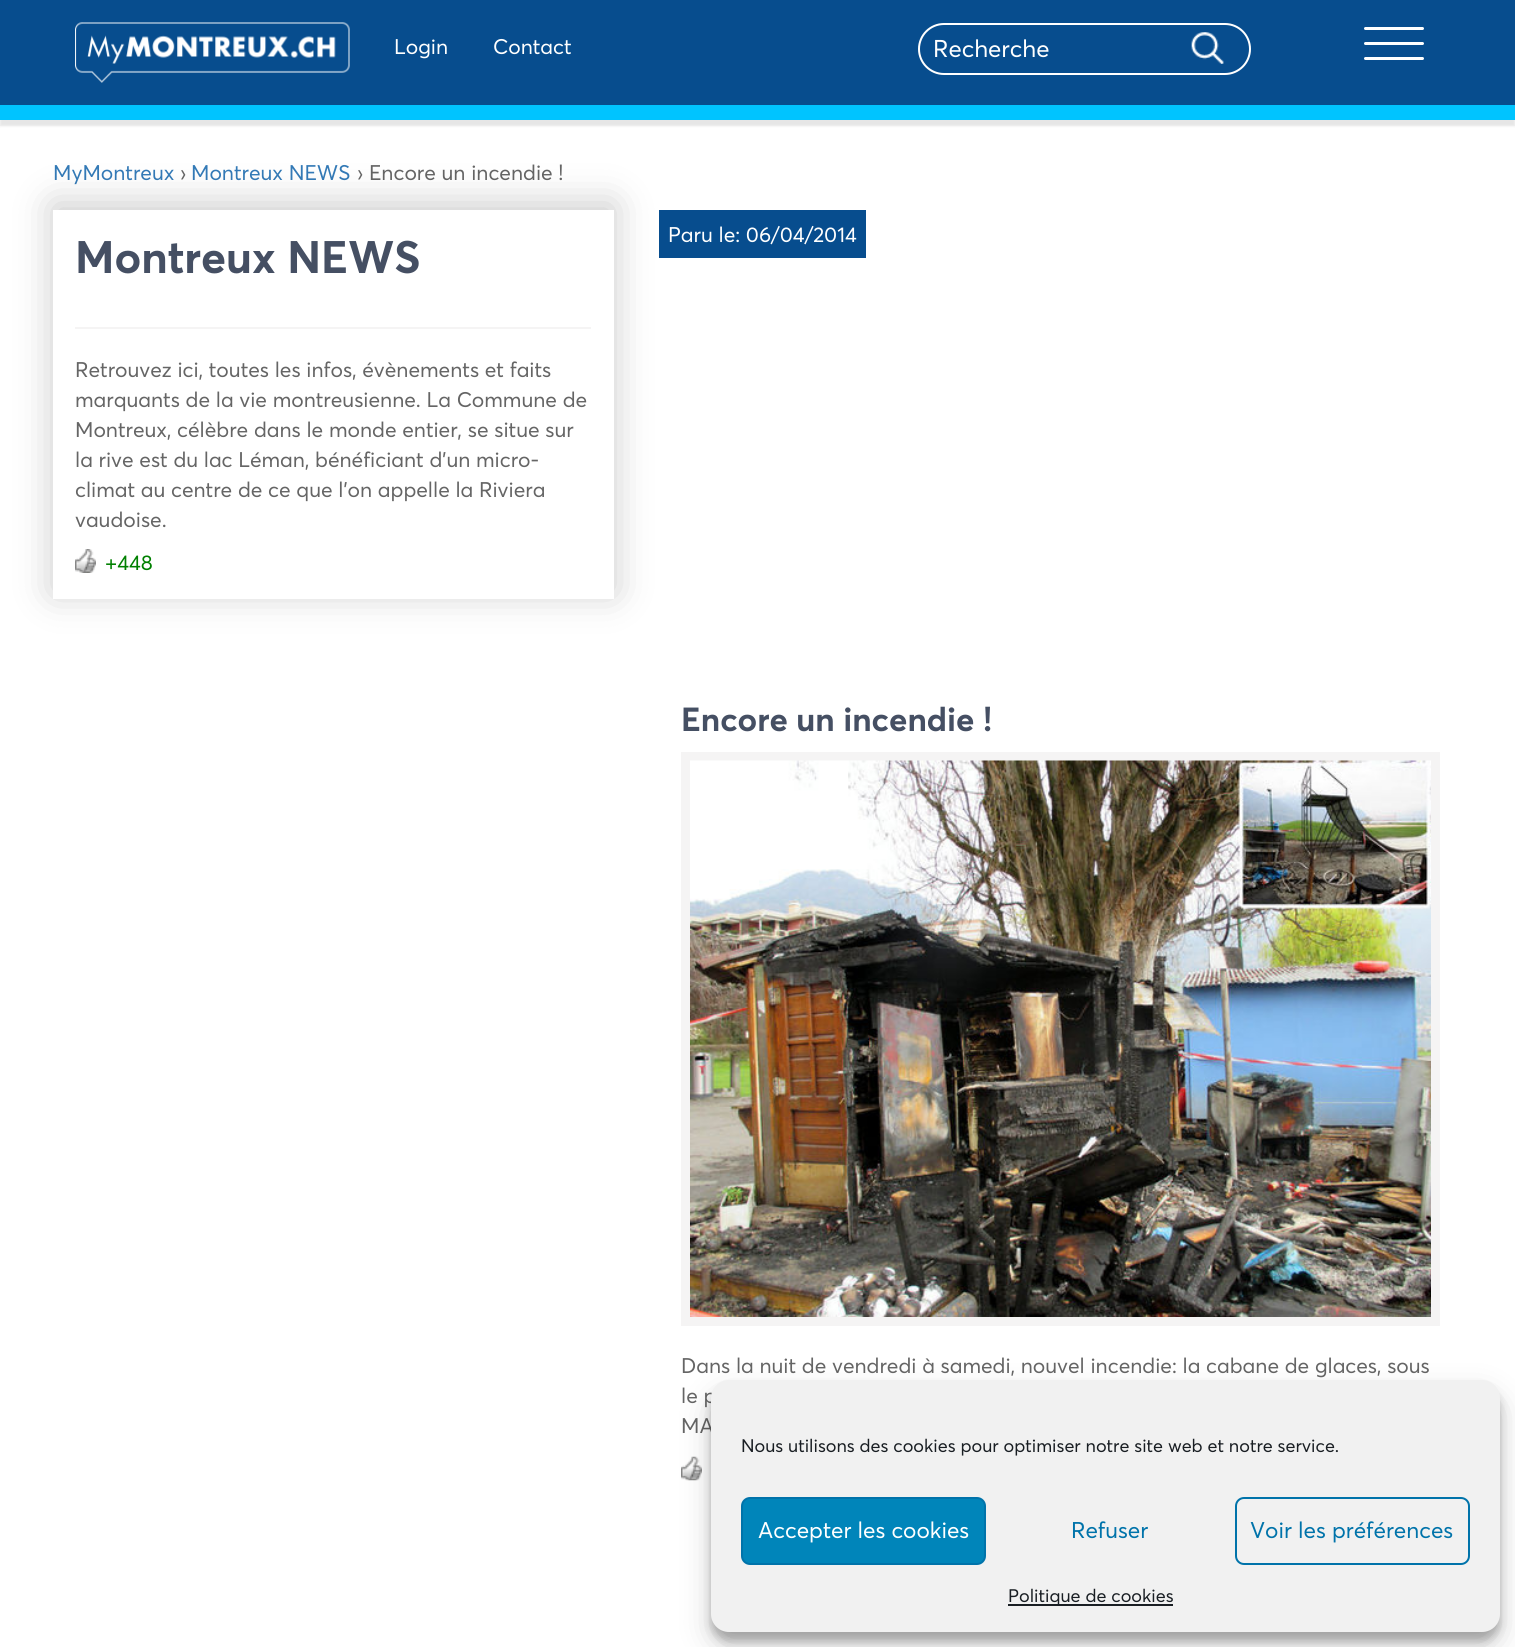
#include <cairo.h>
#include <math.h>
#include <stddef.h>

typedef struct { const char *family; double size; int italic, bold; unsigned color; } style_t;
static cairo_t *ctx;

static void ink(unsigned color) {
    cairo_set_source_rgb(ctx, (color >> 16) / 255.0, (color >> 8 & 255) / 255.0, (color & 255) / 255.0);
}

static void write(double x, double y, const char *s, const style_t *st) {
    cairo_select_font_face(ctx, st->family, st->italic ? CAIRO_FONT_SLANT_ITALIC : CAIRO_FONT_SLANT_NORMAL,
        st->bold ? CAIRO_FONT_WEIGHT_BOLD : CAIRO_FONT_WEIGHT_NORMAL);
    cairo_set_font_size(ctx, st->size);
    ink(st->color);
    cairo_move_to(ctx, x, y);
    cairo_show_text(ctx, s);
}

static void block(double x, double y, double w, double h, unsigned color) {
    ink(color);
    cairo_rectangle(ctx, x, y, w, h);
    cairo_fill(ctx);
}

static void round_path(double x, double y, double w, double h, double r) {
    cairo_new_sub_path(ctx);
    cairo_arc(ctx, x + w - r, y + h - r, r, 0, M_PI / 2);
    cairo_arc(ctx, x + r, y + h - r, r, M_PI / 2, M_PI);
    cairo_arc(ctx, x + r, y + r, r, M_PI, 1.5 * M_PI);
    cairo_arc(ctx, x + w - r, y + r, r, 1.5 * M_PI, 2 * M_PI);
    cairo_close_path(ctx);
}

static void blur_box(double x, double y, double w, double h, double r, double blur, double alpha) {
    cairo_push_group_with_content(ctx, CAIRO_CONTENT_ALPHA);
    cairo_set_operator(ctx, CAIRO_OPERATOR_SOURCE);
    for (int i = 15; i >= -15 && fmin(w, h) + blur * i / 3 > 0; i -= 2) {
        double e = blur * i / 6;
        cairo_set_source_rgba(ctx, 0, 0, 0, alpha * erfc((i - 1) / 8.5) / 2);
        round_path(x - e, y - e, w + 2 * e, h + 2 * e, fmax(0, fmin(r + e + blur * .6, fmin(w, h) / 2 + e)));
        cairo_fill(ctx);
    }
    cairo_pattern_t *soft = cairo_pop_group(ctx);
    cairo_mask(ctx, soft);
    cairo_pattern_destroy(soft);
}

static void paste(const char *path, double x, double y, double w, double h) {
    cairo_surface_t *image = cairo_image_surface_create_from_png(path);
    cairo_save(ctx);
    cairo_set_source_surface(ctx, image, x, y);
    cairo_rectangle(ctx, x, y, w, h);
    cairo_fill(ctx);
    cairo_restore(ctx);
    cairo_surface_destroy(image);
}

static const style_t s1 = {"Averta", 21, 0, 0, 0xffffff};
static const style_t s2 = {"Averta", 24, 0, 0, 0xffffff};
static const style_t s3 = {"Averta", 21, 0, 0, 0x337ab7};
static const style_t s4 = {"Averta", 21, 0, 0, 0x656565};
static const style_t s5 = {"Averta", 45, 0, 1, 0x454f63};
static const style_t s6 = {"Averta", 21, 0, 0, 0x008000};
static const style_t s7 = {"Averta", 33, 0, 1, 0x454f63};
static const style_t s8 = {"Averta", 18, 0, 0, 0x191e23};
static const style_t s9 = {"Averta", 22.5, 0, 0, 0xffffff};
static const style_t s10 = {"Averta", 22.5, 0, 0, 0x0073aa};

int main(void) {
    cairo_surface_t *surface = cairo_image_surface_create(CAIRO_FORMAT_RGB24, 1515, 1647);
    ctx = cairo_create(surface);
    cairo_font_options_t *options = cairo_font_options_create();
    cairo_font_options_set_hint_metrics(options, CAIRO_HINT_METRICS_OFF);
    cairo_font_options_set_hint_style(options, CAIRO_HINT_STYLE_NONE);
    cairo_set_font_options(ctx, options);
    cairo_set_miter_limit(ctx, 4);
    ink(0xffffff);
    cairo_paint(ctx);
    ink(0x000000);
    blur_box(0, 6, 1515, 120, 0, 1, 0.1);
    block(0, 0, 1515, 105, 0x074d8e);
    paste("pic1.png", 75, 22, 275, 61);
    write(394, 54, "Login", &s1);
    write(493, 54, "Contact", &s1);
    round_path(919, 24, 331, 50, 25);
    cairo_stroke(ctx);
    write(933, 57, "Recherche", &s2);
    paste("pic2.png", 1191, 32, 33, 32);
    round_path(1364, 27, 60, 3, 1.5);
    cairo_fill(ctx);
    round_path(1364, 42, 60, 3, 1.5);
    cairo_fill(ctx);
    round_path(1364, 57, 60, 3, 1.5);
    cairo_fill(ctx);
    block(0, 105, 1515, 15, 0x00c4ff);
    write(53, 180, "MyMontreux", &s3);
    write(180, 180, "›", &s4);
    write(191, 180, "Montreux NEWS", &s3);
    write(357, 180, "› Encore un incendie !", &s4);
    ink(0x000000);
    blur_box(53, 204, 561, 389, 0, 19, 0.21);
    block(53, 210, 561, 389, 0xffffff);
    write(75, 273, "Montreux NEWS", &s5);
    block(75, 327, 516, 2, 0xf5f4f4);
    write(75, 377, "Retrouvez ici, toutes les infos, évènements et faits", &s4);
    write(75, 407, "marquants de la vie montreusienne. La Commune de", &s4);
    write(75, 437, "Montreux, célèbre dans le monde entier, se situe sur", &s4);
    write(75, 467, "la rive est du lac Léman, bénéficiant d’un micro-", &s4);
    write(75, 497, "climat au centre de ce que l’on appelle la Riviera", &s4);
    write(75, 527, "vaudoise.", &s4);
    paste("pic3.png", 75, 549, 21, 24);
    write(105, 570, "+448", &s6);
    block(659, 210, 207, 48, 0x074d8e);
    write(668, 242, "Paru le: 06/04/2014", &s1);
    write(681, 731, "Encore un incendie !", &s7);
    block(681, 752, 759, 574, 0xf5f4f4);
    paste("pic4.png", 690, 760, 741, 557);
    write(681, 1373, "Dans la nuit de vendredi à samedi, nouvel incendie: la cabane de glaces, sous", &s4);
    write(681, 1403, "le p", &s4);
    write(681, 1433, "MA", &s4);
    paste("pic5.png", 681, 1456, 21, 25);
    ink(0x000000);
    blur_box(711, 1389, 789, 252, 18, 4.5, 0.23);
    blur_box(711, 1395, 789, 252, 18, 15, 0.19);
    ink(0xf1f1f1);
    round_path(711, 1380, 789, 252, 18);
    cairo_fill(ctx);
    write(741, 1452, "Nous utilisons des cookies pour optimiser notre site web et notre service.", &s8);
    ink(0x0085ba);
    round_path(742, 1498, 243, 66, 8);
    cairo_fill_preserve(ctx);
    ink(0x0073aa);
    cairo_stroke(ctx);
    write(758, 1538, "Accepter les cookies", &s9);
    write(1071, 1538, "Refuser", &s10);
    round_path(1236, 1498, 233, 66, 8);
    cairo_stroke(ctx);
    write(1250, 1538, "Voir les préférences", &s10);
    block(1008, 1604, 165, 2, 0x191e23);
    write(1008, 1602, "Politique de cookies", &s8);
    cairo_surface_write_to_png(surface, "screenshot.png");
    cairo_font_options_destroy(options);
    cairo_destroy(ctx);
    cairo_surface_destroy(surface);
    return 0;
}
